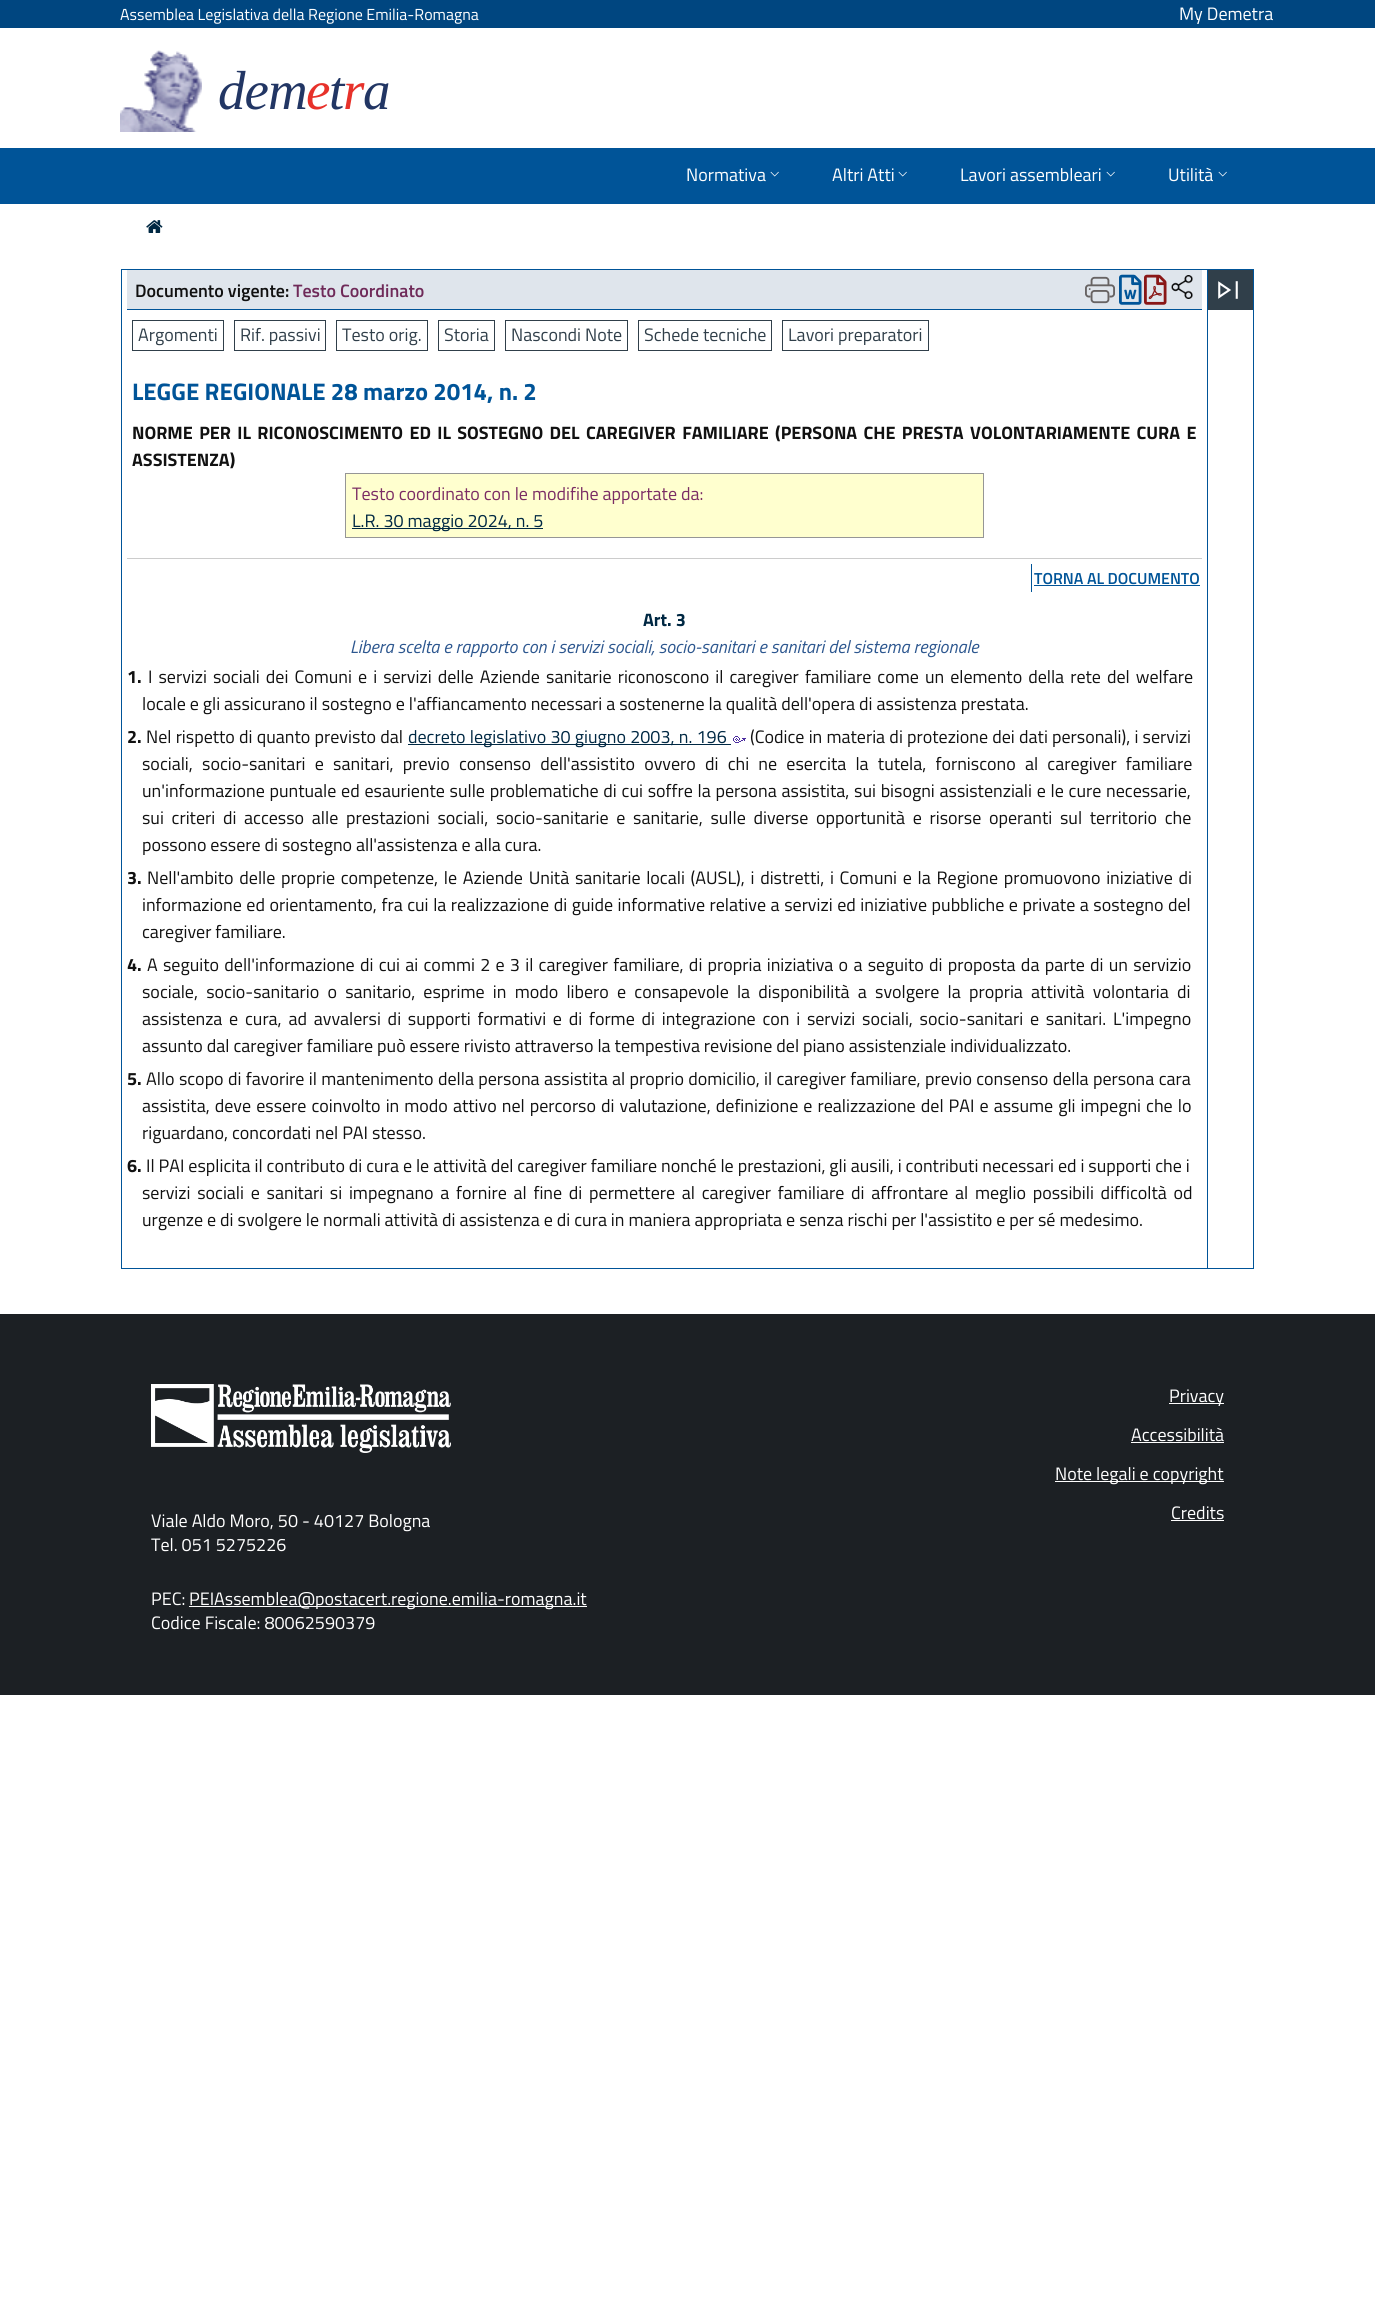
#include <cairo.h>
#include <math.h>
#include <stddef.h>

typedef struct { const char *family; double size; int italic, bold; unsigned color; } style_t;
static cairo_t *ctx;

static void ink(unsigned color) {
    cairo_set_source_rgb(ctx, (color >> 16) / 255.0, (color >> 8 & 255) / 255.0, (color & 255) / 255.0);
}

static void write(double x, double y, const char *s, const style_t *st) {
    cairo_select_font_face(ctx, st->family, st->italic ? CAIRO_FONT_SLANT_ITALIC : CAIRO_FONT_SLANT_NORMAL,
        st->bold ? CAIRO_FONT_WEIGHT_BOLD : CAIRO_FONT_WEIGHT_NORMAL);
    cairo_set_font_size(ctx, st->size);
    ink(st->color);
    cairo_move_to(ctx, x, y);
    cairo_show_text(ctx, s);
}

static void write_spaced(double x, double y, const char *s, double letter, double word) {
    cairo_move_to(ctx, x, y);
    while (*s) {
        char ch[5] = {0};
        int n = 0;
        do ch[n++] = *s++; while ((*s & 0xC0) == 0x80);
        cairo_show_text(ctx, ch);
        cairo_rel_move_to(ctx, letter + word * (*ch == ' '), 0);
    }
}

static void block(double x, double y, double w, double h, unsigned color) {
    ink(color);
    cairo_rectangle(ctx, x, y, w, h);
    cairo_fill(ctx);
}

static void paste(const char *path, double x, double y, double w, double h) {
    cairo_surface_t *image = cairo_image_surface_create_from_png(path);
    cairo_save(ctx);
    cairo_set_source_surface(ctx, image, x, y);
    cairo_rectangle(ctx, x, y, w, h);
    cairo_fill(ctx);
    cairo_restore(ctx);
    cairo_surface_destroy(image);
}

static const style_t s1 = {"Titillium Web", 16, 0, 0, 0xffffff};
static const style_t s2 = {"Titillium Web", 18, 0, 0, 0xffffff};
static const style_t s3 = {"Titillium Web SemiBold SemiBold", 18, 0, 0, 0x111111};
static const style_t s4 = {"Titillium Web SemiBold SemiBold", 18, 0, 0, 0x6f2a59};
static const style_t s5 = {"Titillium Web", 18, 0, 0, 0x303f4a};
static const style_t s6 = {"Titillium Web", 24, 0, 1, 0x005498};
static const style_t s7 = {"Titillium Web", 18, 0, 1, 0x111111};
static const style_t s8 = {"Titillium Web", 18, 0, 0, 0x7b2d64};
static const style_t s9 = {"Titillium Web", 18, 0, 0, 0x002843};
static const style_t s10 = {"Titillium Web SemiBold SemiBold", 16, 0, 0, 0x005498};
static const style_t s11 = {"Titillium Web", 18, 0, 1, 0x002843};
static const style_t s12 = {"Titillium Web", 18, 1, 0, 0x2d578f};
static const style_t s13 = {"Titillium Web", 18, 0, 0, 0x111111};

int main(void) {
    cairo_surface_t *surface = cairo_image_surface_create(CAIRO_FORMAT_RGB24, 1375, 2316);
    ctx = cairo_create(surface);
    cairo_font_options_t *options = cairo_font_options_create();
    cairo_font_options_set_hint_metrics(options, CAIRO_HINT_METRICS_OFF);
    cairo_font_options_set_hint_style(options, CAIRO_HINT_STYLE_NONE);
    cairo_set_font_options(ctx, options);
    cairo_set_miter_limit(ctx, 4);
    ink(0xffffff);
    cairo_paint(ctx);
    block(0, 0, 1375, 28, 0x004680);
    write(120, 20, "Assemblea Legislativa della Regione Emilia-Romagna", &s1);
    write(1179, 20, "My Demetra", &s2);
    paste("pic1.png", 120, 50, 82, 82);
    cairo_select_font_face(ctx, "Liberation Serif", CAIRO_FONT_SLANT_ITALIC, CAIRO_FONT_WEIGHT_NORMAL);
    cairo_set_font_size(ctx, 55);
    ink(0x223664);
    write_spaced(218, 109, "dem", -1, 0);
    ink(0xe7312a);
    write_spaced(306, 109, "e", -1, 0);
    ink(0x223664);
    write_spaced(329, 109, "t", -1, 0);
    ink(0xe7312a);
    write_spaced(343, 109, "r", -1, 0);
    ink(0x223664);
    write_spaced(363, 109, "a", -1, 0);
    block(0, 148, 1375, 56, 0x005498);
    write(686, 181, "Normativa", &s2);
    paste("pic2.png", 770, 171, 9, 6);
    write(832, 181, "Altri Atti", &s2);
    paste("pic2.png", 898, 171, 9, 6);
    write(960, 181, "Lavori assembleari", &s2);
    paste("pic2.png", 1106, 171, 9, 6);
    write(1168, 181, "Utilità", &s2);
    paste("pic2.png", 1218, 171, 9, 6);
    paste("pic3.png", 146, 220, 17, 13);
    cairo_rectangle(ctx, 121.5, 269.5, 1132, 999);
    ink(0x005498);
    cairo_set_line_width(ctx, 1);
    cairo_stroke(ctx);
    block(1207, 270, 1, 998, 0x005498);
    block(127, 270, 1075, 39, 0xdfe5ec);
    block(127, 309, 1075, 1, 0x005498);
    write(135, 297, "Documento vigente:", &s3);
    write(293, 297, "Testo Coordinato", &s4);
    paste("pic4.png", 1085, 276, 30, 28);
    paste("pic5.png", 1119, 274, 23, 31);
    paste("pic6.png", 1144, 274, 23, 31);
    paste("pic7.png", 1171, 275, 22, 24);
    cairo_rectangle(ctx, 132.5, 320.5, 91, 30);
    ink(0x303f4a);
    cairo_stroke(ctx);
    write(138, 341, "Argomenti", &s5);
    cairo_rectangle(ctx, 234.5, 320.5, 91, 30);
    cairo_stroke(ctx);
    write(240, 341, "Rif. passivi", &s5);
    cairo_rectangle(ctx, 336.5, 320.5, 91, 30);
    cairo_stroke(ctx);
    write(342, 341, "Testo orig.", &s5);
    cairo_rectangle(ctx, 438.5, 320.5, 56, 30);
    cairo_stroke(ctx);
    write(444, 341, "Storia", &s5);
    cairo_rectangle(ctx, 505.5, 320.5, 122, 30);
    cairo_stroke(ctx);
    write(511, 341, "Nascondi Note", &s5);
    cairo_rectangle(ctx, 638.5, 320.5, 133, 30);
    cairo_stroke(ctx);
    write(644, 341, "Schede tecniche", &s5);
    cairo_rectangle(ctx, 782.5, 320.5, 146, 30);
    cairo_stroke(ctx);
    write(788, 341, "Lavori preparatori", &s5);
    write(132, 400, "LEGGE REGIONALE 28 marzo 2014, n. 2", &s6);
    cairo_set_font_size(ctx, 18);
    ink(0x111111);
    write_spaced(132, 439, "NORME PER IL RICONOSCIMENTO ED IL SOSTEGNO DEL CAREGIVER FAMILIARE (PERSONA CHE PRESTA VOLONTARIAMENTE CURA E", 0, 2.4);
    write(132, 466, "ASSISTENZA)", &s7);
    ink(0xffffcf);
    cairo_rectangle(ctx, 345.5, 473.5, 638, 64);
    cairo_fill_preserve(ctx);
    ink(0x969696);
    cairo_stroke(ctx);
    write(352, 500, "Testo coordinato con le modifihe apportate da:", &s8);
    block(352, 528, 191, 1, 0x002843);
    write(352, 527, "L.R. 30 maggio 2024, n. 5", &s9);
    block(127, 558, 1075, 1, 0xcccccc);
    block(1031, 564, 1, 28, 0x005498);
    write(1034, 584, "TORNA AL DOCUMENTO", &s10);
    block(1034, 585, 166, 1, 0x005498);
    write(643, 626, "Art. 3", &s11);
    write(350, 653, "Libera scelta e rapporto con i servizi sociali, socio-sanitari e sanitari del sistema regionale", &s12);
    write(127, 683, "1.", &s7);
    cairo_select_font_face(ctx, "Titillium Web", CAIRO_FONT_SLANT_NORMAL, CAIRO_FONT_WEIGHT_NORMAL);
    write_spaced(148, 683, "I servizi sociali dei Comuni e i servizi delle Aziende sanitarie riconoscono il caregiver familiare come un elemento della rete del welfare", 0, 2.1);
    write(142, 710, "locale e gli assicurano il sostegno e l'affiancamento necessari a sostenerne la qualità dell'opera di assistenza prestata.", &s13);
    write(127, 743, "2.", &s7);
    cairo_select_font_face(ctx, "Titillium Web", CAIRO_FONT_SLANT_NORMAL, CAIRO_FONT_WEIGHT_NORMAL);
    write_spaced(146, 743, "Nel rispetto di quanto previsto dal", 0, 0.25);
    block(408, 744, 323, 1, 0x002843);
    write_spaced(408, 743, "decreto legislativo 30 giugno 2003, n. 196", 0, 0.25);
    paste("pic8.png", 733, 736, 13, 7);
    ink(0x111111);
    write_spaced(750, 743, "(Codice in materia di protezione dei dati personali), i servizi", 0, 0.25);
    write_spaced(142, 770, "sociali, socio-sanitari e sanitari, previo consenso dell'assistito ovvero di chi ne esercita la tutela, forniscono al caregiver familiare", 0, 5.25);
    write_spaced(142, 797, "un'informazione puntuale ed esauriente sulle problematiche di cui soffre la persona assistita, sui bisogni assistenziali e le cure necessarie,", 0, 0.8);
    write_spaced(142, 824, "sui criteri di accesso alle prestazioni sociali, socio-sanitarie e sanitarie, sulle diverse opportunità e risorse operanti sul territorio che", 0, 3.75);
    write(142, 851, "possono essere di sostegno all'assistenza e alla cura.", &s13);
    write(127, 884, "3.", &s7);
    cairo_select_font_face(ctx, "Titillium Web", CAIRO_FONT_SLANT_NORMAL, CAIRO_FONT_WEIGHT_NORMAL);
    write_spaced(147, 884, "Nell'ambito delle proprie competenze, le Aziende Unità sanitarie locali (AUSL), i distretti, i Comuni e la Regione promuovono iniziative di", 0, 1.75);
    write_spaced(142, 911, "informazione ed orientamento, fra cui la realizzazione di guide informative relative a servizi ed iniziative pubbliche e private a sostegno del", 0, 0.6);
    write(142, 938, "caregiver familiare.", &s13);
    write(127, 971, "4.", &s7);
    cairo_select_font_face(ctx, "Titillium Web", CAIRO_FONT_SLANT_NORMAL, CAIRO_FONT_WEIGHT_NORMAL);
    write_spaced(147, 971, "A seguito dell'informazione di cui ai commi 2 e 3 il caregiver familiare, di propria iniziativa o a seguito di proposta da parte di un servizio", 0, 1.3);
    write_spaced(142, 998, "sociale, socio-sanitario o sanitario, esprime in modo libero e consapevole la disponibilità a svolgere la propria attività volontaria di", 0, 4.25);
    write_spaced(142, 1025, "assistenza e cura, ad avvalersi di supporti formativi e di forme di integrazione con i servizi sociali, socio-sanitari e sanitari. L'impegno", 0, 2.8);
    write(142, 1052, "assunto dal caregiver familiare può essere rivisto attraverso la tempestiva revisione del piano assistenziale individualizzato.", &s13);
    write(127, 1085, "5.", &s7);
    cairo_select_font_face(ctx, "Titillium Web", CAIRO_FONT_SLANT_NORMAL, CAIRO_FONT_WEIGHT_NORMAL);
    write_spaced(146, 1085, "Allo scopo di favorire il mantenimento della persona assistita al proprio domicilio, il caregiver familiare, previo consenso della persona cara", 0, 0.4);
    write_spaced(142, 1112, "assistita, deve essere coinvolto in modo attivo nel percorso di valutazione, definizione e realizzazione del PAI e assume gli impegni che lo", 0, 1.1);
    write(142, 1139, "riguardano, concordati nel PAI stesso.", &s13);
    write(127, 1172, "6.", &s7);
    write(146, 1172, "Il PAI esplicita il contributo di cura e le attività del caregiver familiare nonché le prestazioni, gli ausili, i contributi necessari ed i supporti che i", &s13);
    write_spaced(142, 1199, "servizi sociali e sanitari si impegnano a fornire al fine di permettere al caregiver familiare di affrontare al meglio possibili difficoltà od", 0, 2.8);
    write(142, 1226, "urgenze e di svolgere le normali attività di assistenza e di cura in maniera appropriata e senza rischi per l'assistito e per sé medesimo.", &s13);
    block(1208, 270, 45, 40, 0x303f4a);
    paste("pic9.png", 1218, 281, 20, 18);
    block(0, 1314, 1375, 381, 0x1c2024);
    block(1169, 1403, 55, 1, 0xffffff);
    write(1169, 1402, "Privacy", &s2);
    write(1131, 1441, "Accessibilità", &s2);
    block(1131, 1442, 93, 1, 0xffffff);
    block(1055, 1481, 169, 1, 0xffffff);
    write(1055, 1480, "Note legali e copyright", &s2);
    write(1171, 1519, "Credits", &s2);
    block(1171, 1520, 53, 1, 0xffffff);
    paste("pic10.png", 151, 1384, 300, 69);
    write(151, 1527, "Viale Aldo Moro, 50 - 40127 Bologna", &s2);
    write(151, 1551, "Tel. 051 5275226", &s2);
    write(151, 1605, "PEC:", &s2);
    block(189, 1606, 398, 1, 0xffffff);
    write(189, 1605, "PEIAssemblea@postacert.regione.emilia-romagna.it", &s2);
    write(151, 1629, "Codice Fiscale: 80062590379", &s2);
    cairo_surface_write_to_png(surface, "screenshot.png");
    cairo_font_options_destroy(options);
    cairo_destroy(ctx);
    cairo_surface_destroy(surface);
    return 0;
}
